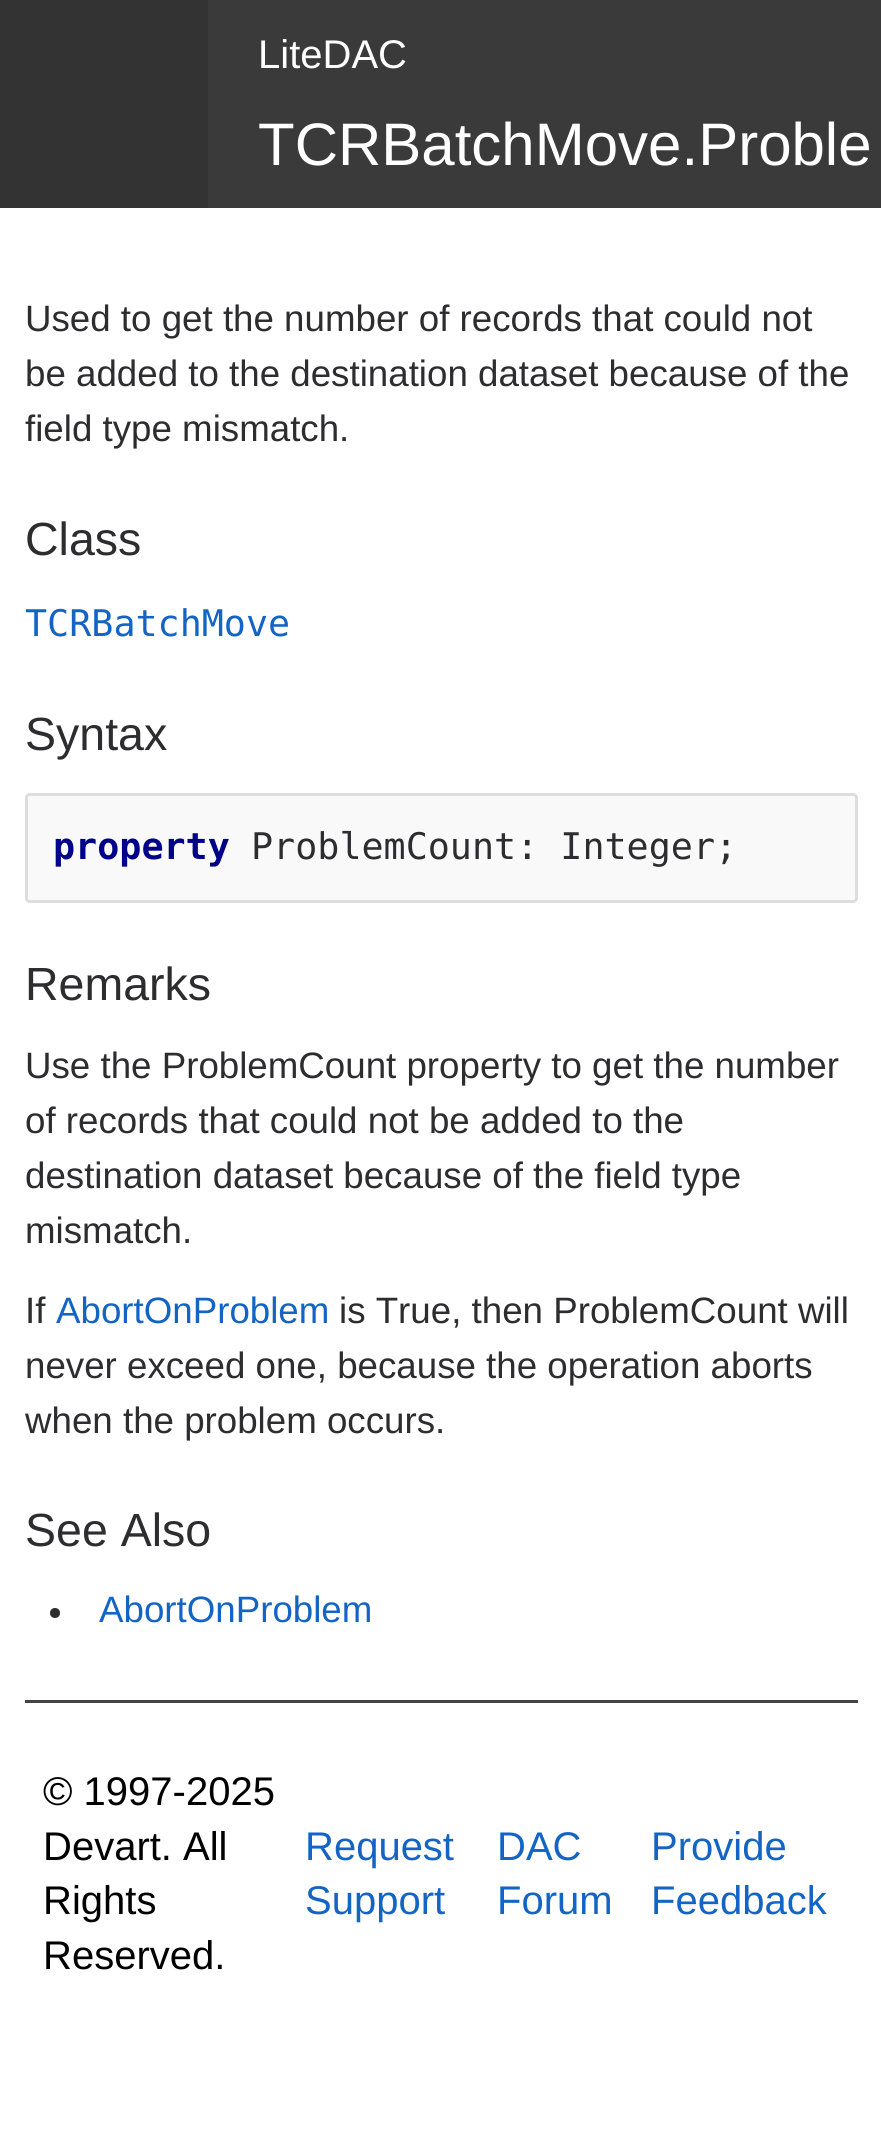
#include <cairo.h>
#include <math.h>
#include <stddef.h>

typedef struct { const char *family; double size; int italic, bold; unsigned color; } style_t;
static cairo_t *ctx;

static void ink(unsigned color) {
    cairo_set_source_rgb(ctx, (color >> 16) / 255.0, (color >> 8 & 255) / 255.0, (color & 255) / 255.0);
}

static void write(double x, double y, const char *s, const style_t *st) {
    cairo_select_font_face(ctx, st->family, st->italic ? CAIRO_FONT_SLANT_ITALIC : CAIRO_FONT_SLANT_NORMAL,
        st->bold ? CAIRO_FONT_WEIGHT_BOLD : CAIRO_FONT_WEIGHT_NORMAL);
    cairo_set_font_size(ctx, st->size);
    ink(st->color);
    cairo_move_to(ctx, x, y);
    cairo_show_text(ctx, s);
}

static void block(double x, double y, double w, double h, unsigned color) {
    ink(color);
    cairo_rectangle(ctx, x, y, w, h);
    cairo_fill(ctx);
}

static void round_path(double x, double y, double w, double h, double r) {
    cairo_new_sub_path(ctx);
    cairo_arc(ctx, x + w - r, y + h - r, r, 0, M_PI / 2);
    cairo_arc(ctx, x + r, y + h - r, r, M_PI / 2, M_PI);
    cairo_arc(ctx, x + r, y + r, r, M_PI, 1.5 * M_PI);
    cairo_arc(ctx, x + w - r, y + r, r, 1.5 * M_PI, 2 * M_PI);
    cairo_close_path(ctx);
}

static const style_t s1 = {"Liberation Sans", 40, 0, 0, 0xffffff};
static const style_t s2 = {"Liberation Sans", 60, 0, 0, 0xffffff};
static const style_t s3 = {"Liberation Sans", 36.7, 0, 0, 0x2d2d30};
static const style_t s4 = {"Liberation Sans", 46.5, 0, 0, 0x2d2d30};
static const style_t s5 = {"DejaVu Sans Mono", 36.7, 0, 0, 0x1364c4};
static const style_t s6 = {"DejaVu Sans Mono", 36.7, 0, 1, 0x000088};
static const style_t s7 = {"DejaVu Sans Mono", 36.7, 0, 0, 0x2d2d30};
static const style_t s8 = {"Liberation Sans", 36.7, 0, 0, 0x1364c4};
static const style_t s9 = {"Liberation Sans", 40, 0, 0, 0x000000};
static const style_t s10 = {"Liberation Sans", 40, 0, 0, 0x1364c4};

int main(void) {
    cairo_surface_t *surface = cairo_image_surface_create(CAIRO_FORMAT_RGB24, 881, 2140);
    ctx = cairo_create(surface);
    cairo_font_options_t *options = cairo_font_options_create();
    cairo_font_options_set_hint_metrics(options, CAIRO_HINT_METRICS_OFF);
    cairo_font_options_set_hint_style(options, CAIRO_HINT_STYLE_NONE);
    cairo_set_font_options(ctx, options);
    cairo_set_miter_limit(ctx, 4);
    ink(0xffffff);
    cairo_paint(ctx);
    block(0, 0, 208, 208, 0x333333);
    block(208, 0, 673, 208, 0x3a3a3a);
    write(258, 68, "LiteDAC", &s1);
    write(258, 165, "TCRBatchMove.Proble", &s2);
    write(25, 331, "Used to get the number of records that could not", &s3);
    write(25, 386, "be added to the destination dataset because of the", &s3);
    write(25, 441, "field type mismatch.", &s3);
    write(25, 555, "Class", &s4);
    write(25, 636, "TCRBatchMove", &s5);
    write(25, 750, "Syntax", &s4);
    ink(0xf9f9f9);
    round_path(26.5, 794.5, 830, 107, 3.5);
    cairo_fill_preserve(ctx);
    ink(0xdddddd);
    cairo_set_line_width(ctx, 3);
    cairo_stroke(ctx);
    write(53, 859, "property", &s6);
    write(251, 859, "ProblemCount: Integer;", &s7);
    write(25, 1000, "Remarks", &s4);
    write(25, 1078, "Use the ProblemCount property to get the number", &s3);
    write(25, 1133, "of records that could not be added to the", &s3);
    write(25, 1188, "destination dataset because of the field type", &s3);
    write(25, 1243, "mismatch.", &s3);
    write(25, 1323, "If", &s3);
    write(56, 1323, "AbortOnProblem", &s8);
    write(339, 1323, "is True, then ProblemCount will", &s3);
    write(25, 1378, "never exceed one, because the operation aborts", &s3);
    write(25, 1433, "when the problem occurs.", &s3);
    write(25, 1546, "See Also", &s4);
    cairo_new_path(ctx);
    cairo_arc(ctx, 55, 1613, 5, 0, 2 * M_PI);
    cairo_fill(ctx);
    write(99, 1622, "AbortOnProblem", &s8);
    block(25, 1700, 833, 3, 0x444444);
    write(43, 1805, "© 1997-2025", &s9);
    write(43, 1860, "Devart. All", &s9);
    write(43, 1914, "Rights", &s9);
    write(43, 1969, "Reserved.", &s9);
    write(305, 1860, "Request", &s10);
    write(305, 1914, "Support", &s10);
    write(497, 1860, "DAC", &s10);
    write(497, 1914, "Forum", &s10);
    write(651, 1860, "Provide", &s10);
    write(651, 1914, "Feedback", &s10);
    cairo_surface_write_to_png(surface, "screenshot.png");
    cairo_font_options_destroy(options);
    cairo_destroy(ctx);
    cairo_surface_destroy(surface);
    return 0;
}
